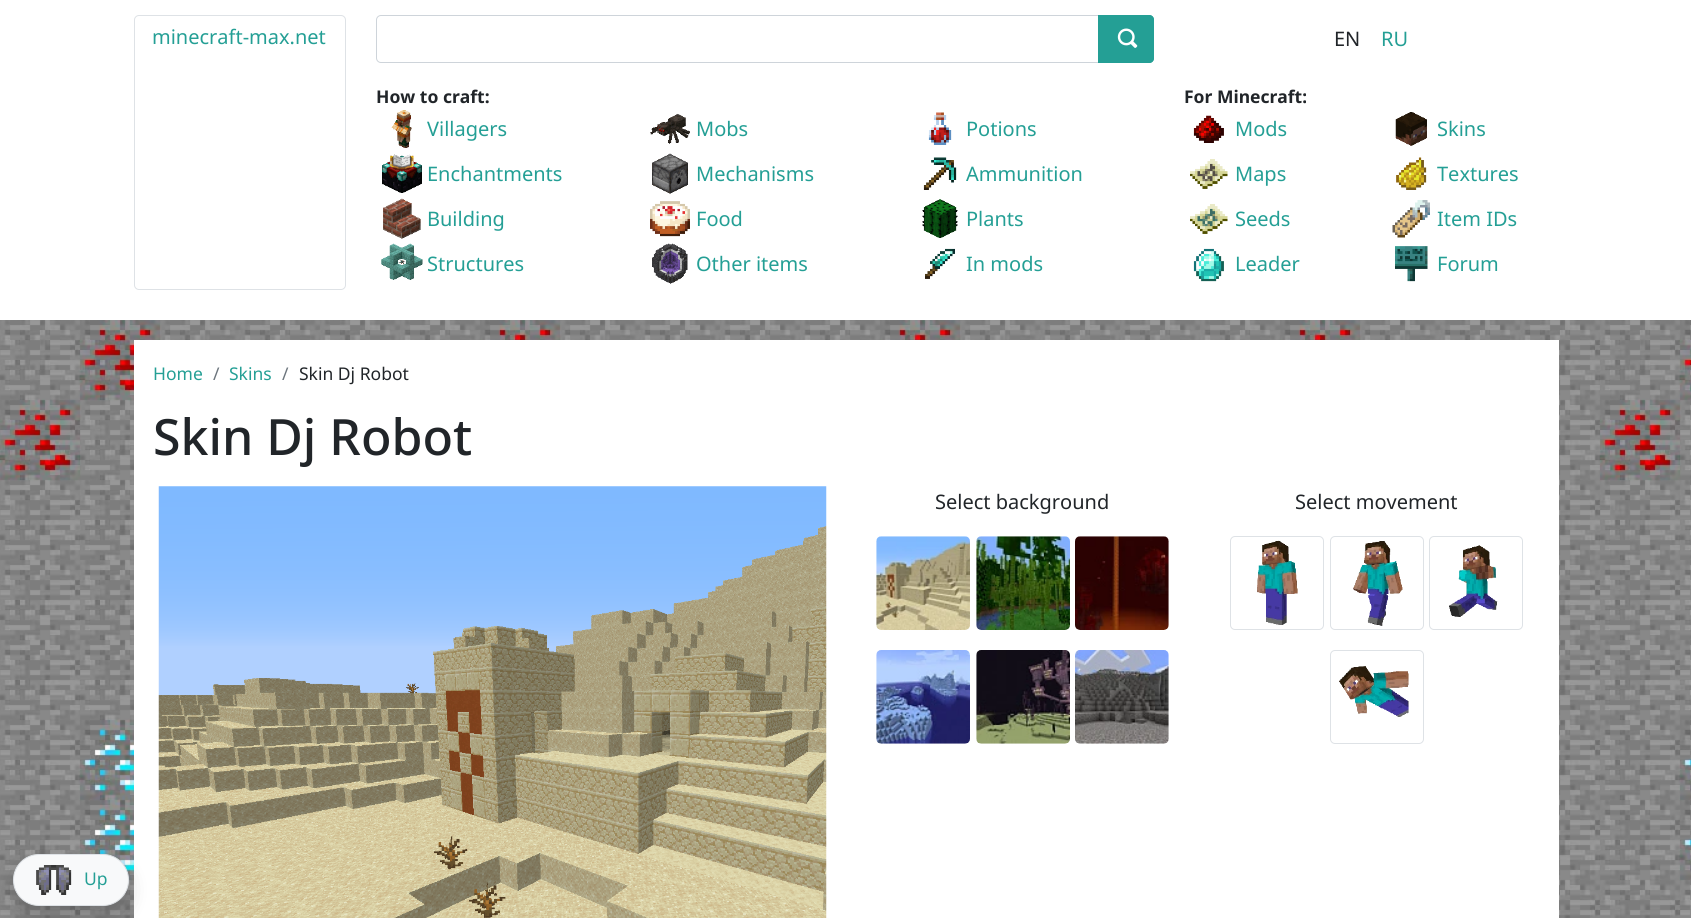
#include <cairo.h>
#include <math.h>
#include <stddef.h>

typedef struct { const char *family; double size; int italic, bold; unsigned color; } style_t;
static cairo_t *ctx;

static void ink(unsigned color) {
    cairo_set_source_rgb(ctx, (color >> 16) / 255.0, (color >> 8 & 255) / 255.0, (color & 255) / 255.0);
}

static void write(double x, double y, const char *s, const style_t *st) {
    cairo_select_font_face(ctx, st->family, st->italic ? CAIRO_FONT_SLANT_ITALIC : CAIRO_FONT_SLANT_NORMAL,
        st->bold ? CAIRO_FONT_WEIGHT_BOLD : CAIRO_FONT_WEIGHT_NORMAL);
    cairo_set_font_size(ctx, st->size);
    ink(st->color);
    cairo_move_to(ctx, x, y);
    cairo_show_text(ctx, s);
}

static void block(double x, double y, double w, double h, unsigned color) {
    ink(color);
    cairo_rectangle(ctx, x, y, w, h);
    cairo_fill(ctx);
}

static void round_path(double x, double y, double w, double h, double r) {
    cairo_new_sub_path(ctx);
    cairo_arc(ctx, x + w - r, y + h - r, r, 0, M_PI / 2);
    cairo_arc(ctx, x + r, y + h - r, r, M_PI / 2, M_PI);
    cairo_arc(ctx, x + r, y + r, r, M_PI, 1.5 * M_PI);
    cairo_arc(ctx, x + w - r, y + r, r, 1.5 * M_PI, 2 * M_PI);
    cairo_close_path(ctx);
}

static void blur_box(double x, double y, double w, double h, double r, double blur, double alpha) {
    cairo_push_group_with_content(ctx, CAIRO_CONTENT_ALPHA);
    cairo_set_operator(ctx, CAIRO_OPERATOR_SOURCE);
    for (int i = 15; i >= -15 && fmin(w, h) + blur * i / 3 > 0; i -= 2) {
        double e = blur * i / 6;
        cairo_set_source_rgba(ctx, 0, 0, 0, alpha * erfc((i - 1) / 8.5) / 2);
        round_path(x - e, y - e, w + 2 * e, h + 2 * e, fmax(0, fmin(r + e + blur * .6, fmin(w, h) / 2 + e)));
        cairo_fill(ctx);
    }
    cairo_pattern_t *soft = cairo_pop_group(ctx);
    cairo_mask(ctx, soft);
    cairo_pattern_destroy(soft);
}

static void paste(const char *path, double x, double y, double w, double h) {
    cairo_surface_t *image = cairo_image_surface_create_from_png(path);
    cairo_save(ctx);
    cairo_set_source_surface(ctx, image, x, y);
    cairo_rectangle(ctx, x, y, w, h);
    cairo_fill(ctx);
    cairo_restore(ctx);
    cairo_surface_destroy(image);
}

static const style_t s1 = {"Noto Sans", 20, 0, 0, 0x249f95};
static const style_t s2 = {"Noto Sans", 20, 0, 0, 0x212529};
static const style_t s3 = {"Noto Sans", 17.5, 0, 1, 0x212529};
static const style_t s4 = {"Noto Sans", 17.5, 0, 0, 0x249f95};
static const style_t s5 = {"Noto Sans", 17.5, 0, 0, 0x6c757d};
static const style_t s6 = {"Noto Sans", 17.5, 0, 0, 0x212529};
static const style_t s7 = {"Noto Sans Medium", 50, 0, 0, 0x212529};

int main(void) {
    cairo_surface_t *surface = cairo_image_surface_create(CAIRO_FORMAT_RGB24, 1691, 918);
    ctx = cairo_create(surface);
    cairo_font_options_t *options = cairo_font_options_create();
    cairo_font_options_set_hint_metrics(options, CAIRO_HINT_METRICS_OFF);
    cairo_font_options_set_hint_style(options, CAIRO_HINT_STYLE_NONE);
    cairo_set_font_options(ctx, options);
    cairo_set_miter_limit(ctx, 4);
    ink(0xffffff);
    cairo_paint(ctx);
    paste("pic1.png", 0, 320, 1691, 598);
    round_path(134.5, 15.5, 211, 274, 4.5);
    ink(0xdee2e6);
    cairo_set_line_width(ctx, 1);
    cairo_stroke(ctx);
    write(152, 44, "minecraft-max.net", &s1);
    cairo_new_path(ctx);
    cairo_move_to(ctx, 381, 15.5);
    cairo_line_to(ctx, 1098.5, 15.5);
    cairo_line_to(ctx, 1098.5, 62.5);
    cairo_line_to(ctx, 381, 62.5);
    cairo_curve_to(ctx, 378.5, 62.5, 376.5, 60.5, 376.5, 58);
    cairo_line_to(ctx, 376.5, 20);
    cairo_curve_to(ctx, 376.5, 17.5, 378.5, 15.5, 381, 15.5);
    cairo_close_path(ctx);
    ink(0xced4da);
    cairo_stroke(ctx);
    ink(0x249f95);
    cairo_new_path(ctx);
    cairo_move_to(ctx, 1098, 15);
    cairo_line_to(ctx, 1149, 15);
    cairo_curve_to(ctx, 1152, 15, 1154, 17, 1154, 20);
    cairo_line_to(ctx, 1154, 58);
    cairo_curve_to(ctx, 1154, 61, 1152, 63, 1149, 63);
    cairo_line_to(ctx, 1098, 63);
    cairo_close_path(ctx);
    cairo_fill(ctx);
    paste("pic2.png", 1117, 28, 21, 20);
    cairo_new_path(ctx);
    cairo_move_to(ctx, 1098.5, 15.5);
    cairo_line_to(ctx, 1149, 15.5);
    cairo_curve_to(ctx, 1151.5, 15.5, 1153.5, 17.5, 1153.5, 20);
    cairo_line_to(ctx, 1153.5, 58);
    cairo_curve_to(ctx, 1153.5, 60.5, 1151.5, 62.5, 1149, 62.5);
    cairo_line_to(ctx, 1098.5, 62.5);
    cairo_close_path(ctx);
    cairo_stroke(ctx);
    write(1334, 46, "EN", &s2);
    write(1381, 46, "RU", &s1);
    write(376, 103, "How to craft:", &s3);
    paste("pic3.png", 391, 110, 21, 38);
    write(427, 136, "Villagers", &s1);
    paste("pic4.png", 650, 113, 40, 31);
    write(696, 136, "Mobs", &s1);
    paste("pic5.png", 928, 112, 24, 33);
    write(966, 136, "Potions", &s1);
    paste("pic6.png", 382, 154, 40, 39);
    write(427, 181, "Enchantments", &s1);
    paste("pic7.png", 652, 153, 36, 41);
    write(696, 181, "Mechanisms", &s1);
    paste("pic8.png", 923, 157, 34, 33);
    write(966, 181, "Ammunition", &s1);
    paste("pic9.png", 383, 198, 38, 41);
    write(427, 226, "Building", &s1);
    paste("pic10.png", 650, 201, 40, 36);
    write(696, 226, "Food", &s1);
    paste("pic11.png", 922, 199, 36, 39);
    write(966, 226, "Plants", &s1);
    paste("pic12.png", 381, 243, 42, 37);
    write(427, 271, "Structures", &s1);
    paste("pic13.png", 652, 243, 36, 41);
    write(696, 271, "Other items", &s1);
    paste("pic14.png", 925, 248, 30, 31);
    write(966, 271, "In mods", &s1);
    write(1184, 103, "For Minecraft:", &s3);
    paste("pic15.png", 1193, 115, 31, 28);
    write(1235, 136, "Mods", &s1);
    paste("pic16.png", 1395, 112, 32, 34);
    write(1437, 136, "Skins", &s1);
    paste("pic17.png", 1190, 159, 38, 30);
    write(1235, 181, "Maps", &s1);
    paste("pic18.png", 1396, 157, 31, 33);
    write(1437, 181, "Textures", &s1);
    paste("pic19.png", 1190, 204, 38, 30);
    write(1235, 226, "Seeds", &s1);
    paste("pic20.png", 1392, 200, 38, 38);
    write(1437, 226, "Item IDs", &s1);
    paste("pic21.png", 1193, 248, 31, 34);
    write(1235, 271, "Leader", &s1);
    paste("pic22.png", 1395, 246, 33, 36);
    write(1437, 271, "Forum", &s1);
    block(134, 340, 1425, 578, 0xffffff);
    write(153, 380, "Home", &s4);
    write(213, 380, "/", &s5);
    write(229, 380, "Skins", &s4);
    write(282, 380, "/", &s5);
    write(299, 380, "Skin Dj Robot", &s6);
    write(153, 455, "Skin Dj Robot", &s7);
    paste("pic23.png", 158, 486, 669, 432);
    write(935, 509, "Select background", &s2);
    paste("pic24.png", 876, 536, 94, 94);
    paste("pic25.png", 976, 536, 94, 94);
    paste("pic26.png", 1075, 536, 94, 94);
    paste("pic27.png", 876, 650, 94, 94);
    paste("pic28.png", 976, 650, 94, 94);
    paste("pic29.png", 1075, 650, 94, 94);
    write(1295, 509, "Select movement", &s2);
    round_path(1230.5, 536.5, 93, 93, 4.5);
    ink(0xdee2e6);
    cairo_stroke(ctx);
    paste("pic30.png", 1257, 540, 41, 85);
    round_path(1330.5, 536.5, 93, 93, 4.5);
    cairo_stroke(ctx);
    paste("pic31.png", 1353, 541, 50, 85);
    round_path(1429.5, 536.5, 93, 93, 4.5);
    cairo_stroke(ctx);
    paste("pic32.png", 1449, 545, 49, 72);
    round_path(1330.5, 650.5, 93, 93, 4.5);
    cairo_stroke(ctx);
    paste("pic33.png", 1339, 666, 70, 51);
    ink(0x000000);
    blur_box(13, 864, 116, 52, 26, 10, 0.15);
    ink(0xf8f9fa);
    round_path(13.5, 854.5, 115, 51, 25.5);
    cairo_fill_preserve(ctx);
    ink(0xdee2e6);
    cairo_stroke(ctx);
    paste("pic34.png", 36, 865, 36, 30);
    write(84, 885, "Up", &s4);
    cairo_surface_write_to_png(surface, "screenshot.png");
    cairo_font_options_destroy(options);
    cairo_destroy(ctx);
    cairo_surface_destroy(surface);
    return 0;
}
